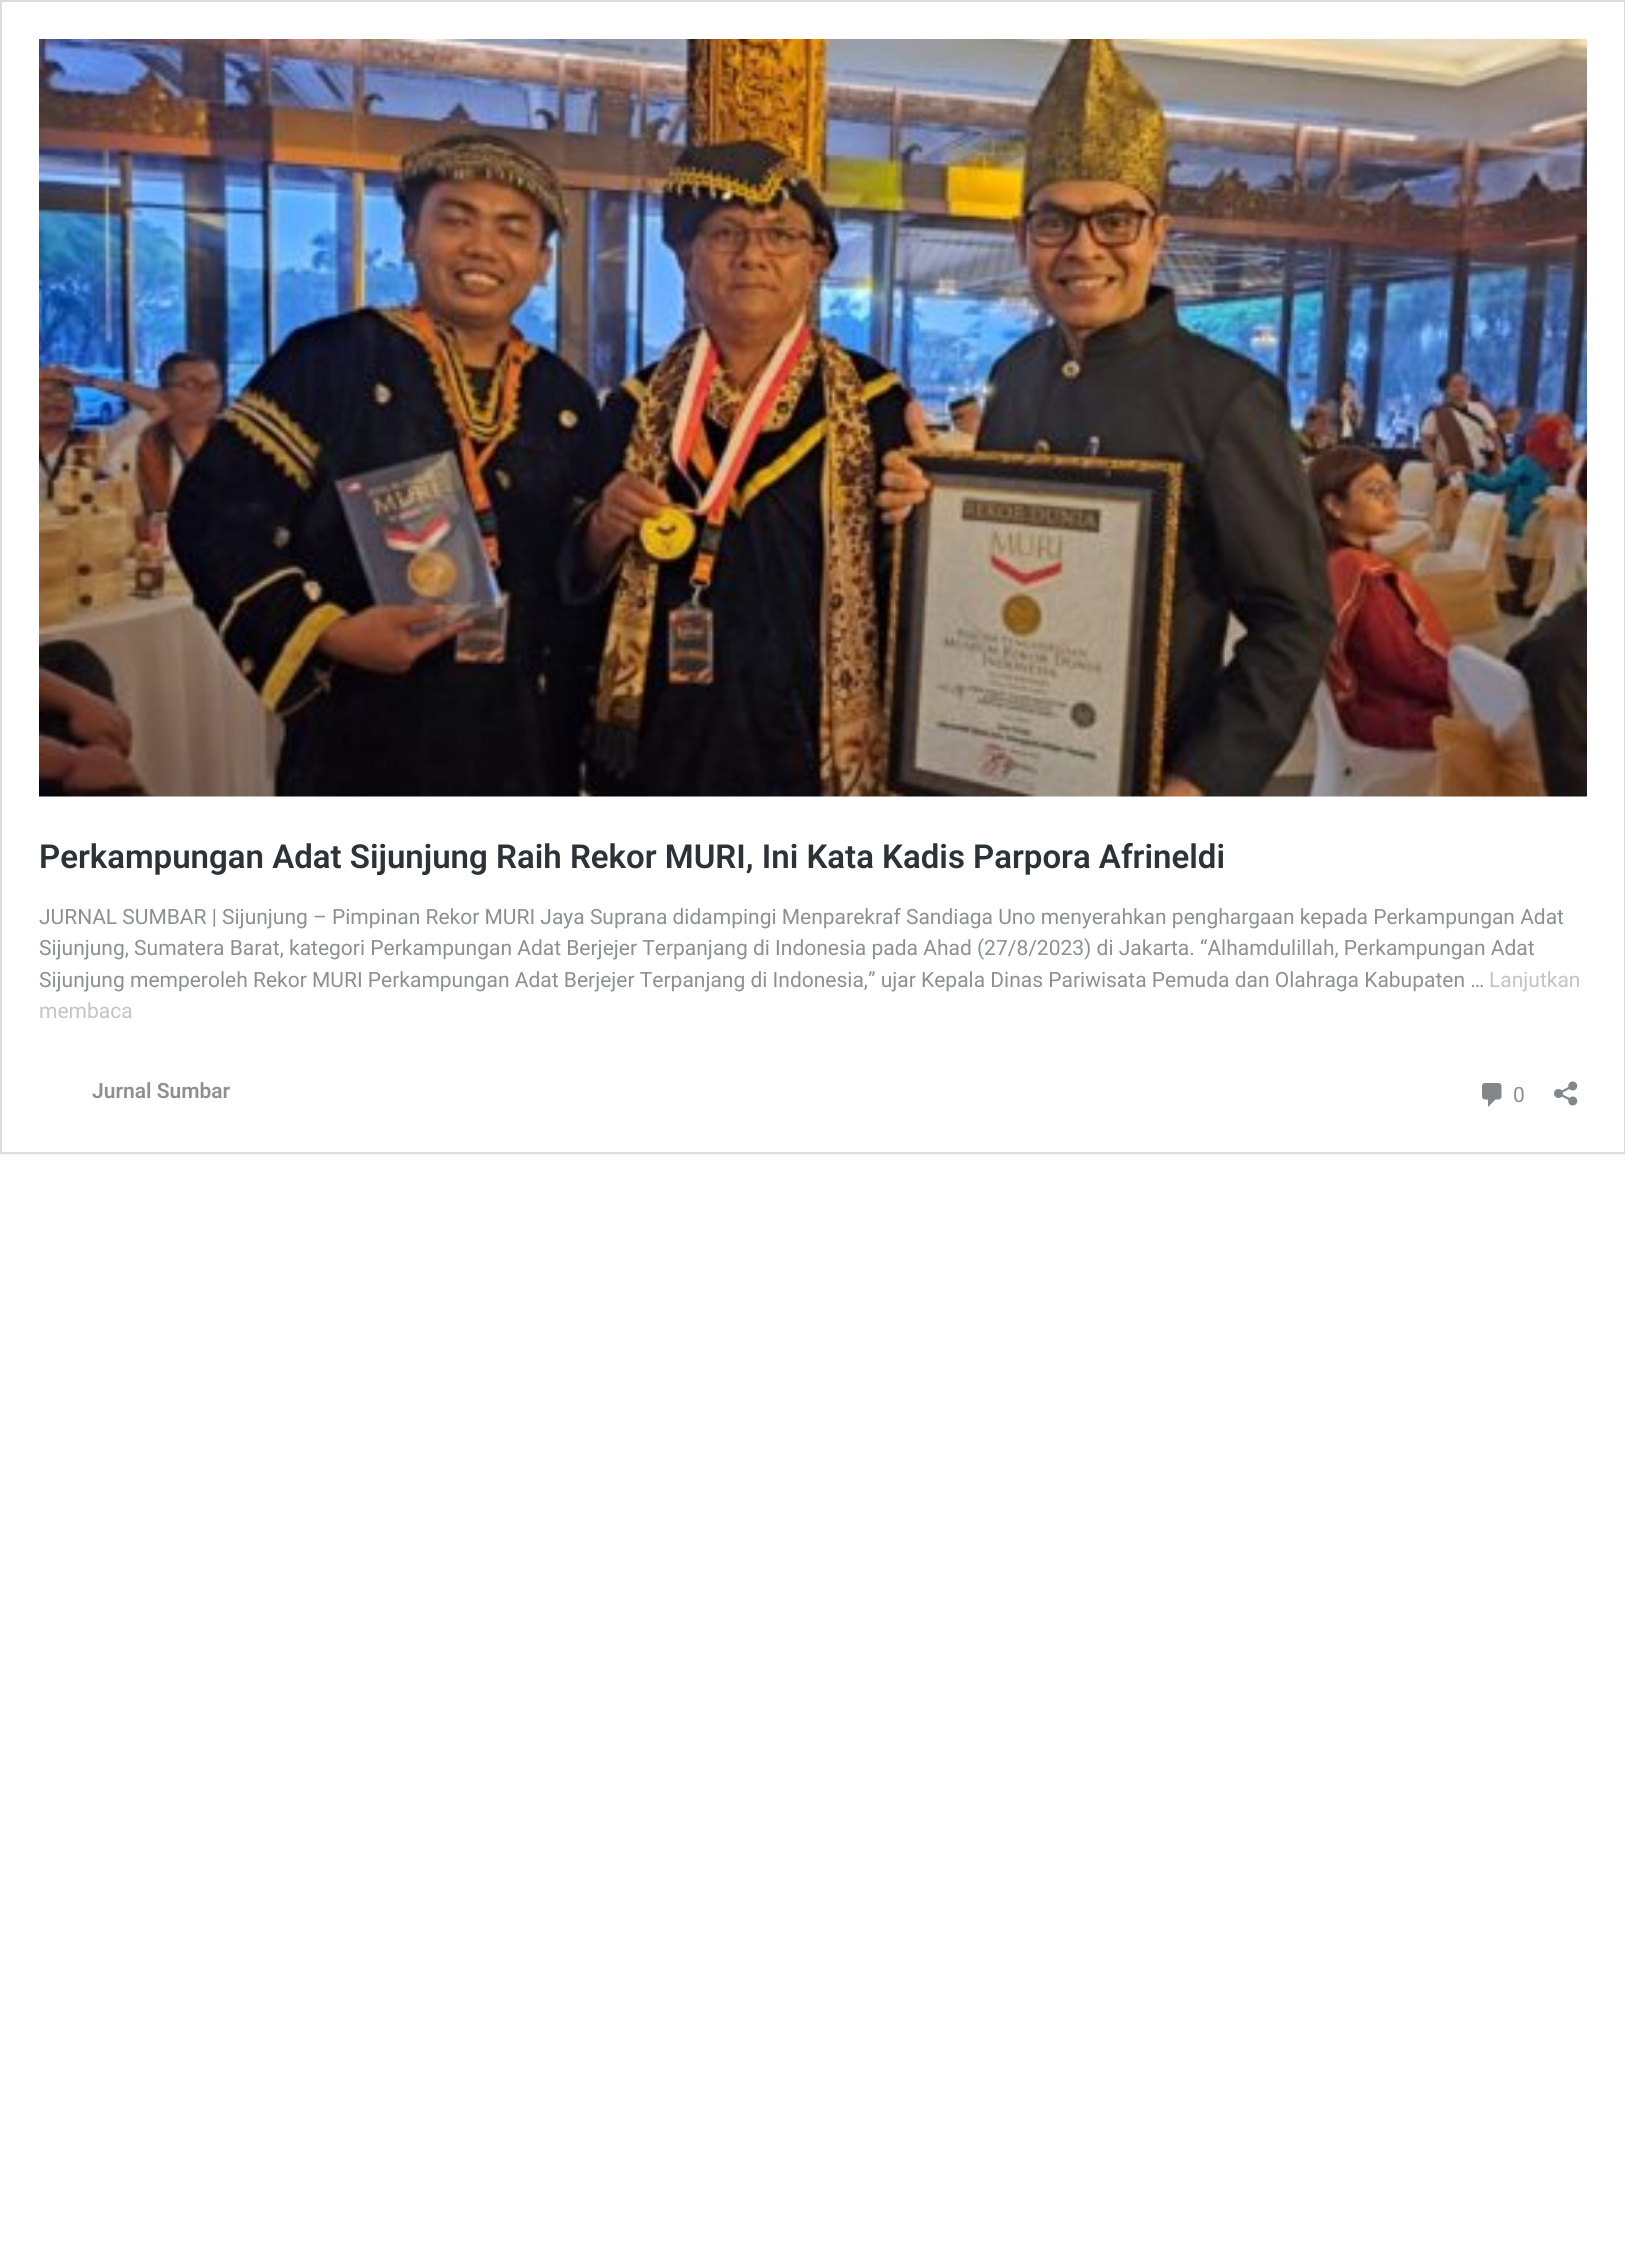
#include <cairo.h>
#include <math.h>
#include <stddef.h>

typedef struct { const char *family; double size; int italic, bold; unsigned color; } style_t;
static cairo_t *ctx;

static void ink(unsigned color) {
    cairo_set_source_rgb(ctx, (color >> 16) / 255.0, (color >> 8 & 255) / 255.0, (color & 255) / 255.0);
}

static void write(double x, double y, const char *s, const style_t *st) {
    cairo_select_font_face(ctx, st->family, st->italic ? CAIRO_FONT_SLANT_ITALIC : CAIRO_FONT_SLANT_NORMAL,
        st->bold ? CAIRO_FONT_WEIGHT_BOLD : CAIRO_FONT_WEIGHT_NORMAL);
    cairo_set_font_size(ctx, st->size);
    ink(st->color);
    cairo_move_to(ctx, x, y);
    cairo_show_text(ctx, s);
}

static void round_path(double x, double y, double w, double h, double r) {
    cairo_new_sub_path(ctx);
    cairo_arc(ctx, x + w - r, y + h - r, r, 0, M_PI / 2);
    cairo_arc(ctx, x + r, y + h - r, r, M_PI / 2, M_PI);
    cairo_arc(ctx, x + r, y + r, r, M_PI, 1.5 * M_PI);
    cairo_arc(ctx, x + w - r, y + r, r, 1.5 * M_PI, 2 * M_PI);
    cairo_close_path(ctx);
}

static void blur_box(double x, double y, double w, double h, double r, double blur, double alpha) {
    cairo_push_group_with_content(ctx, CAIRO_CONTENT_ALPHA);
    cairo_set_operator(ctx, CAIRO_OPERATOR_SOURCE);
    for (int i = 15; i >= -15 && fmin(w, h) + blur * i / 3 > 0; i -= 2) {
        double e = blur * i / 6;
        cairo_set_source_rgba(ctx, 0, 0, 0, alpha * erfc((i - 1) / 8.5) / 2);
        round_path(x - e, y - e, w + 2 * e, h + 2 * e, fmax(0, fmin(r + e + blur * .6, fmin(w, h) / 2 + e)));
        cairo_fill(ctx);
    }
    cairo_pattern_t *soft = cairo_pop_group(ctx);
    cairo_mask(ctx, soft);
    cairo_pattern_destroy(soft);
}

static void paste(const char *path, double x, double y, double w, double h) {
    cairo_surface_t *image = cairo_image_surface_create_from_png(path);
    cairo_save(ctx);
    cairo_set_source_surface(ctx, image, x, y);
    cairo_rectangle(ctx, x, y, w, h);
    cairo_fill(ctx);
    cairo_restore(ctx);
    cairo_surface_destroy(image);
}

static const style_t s1 = {"Roboto SemiBold", 33, 0, 0, 0x2c3338};
static const style_t s2 = {"Roboto", 21, 0, 0, 0x8c8f94};
static const style_t s3 = {"Roboto", 21, 0, 0, 0xc3c4c7};
static const style_t s4 = {"Roboto SemiBold", 21, 0, 0, 0x8c8f94};

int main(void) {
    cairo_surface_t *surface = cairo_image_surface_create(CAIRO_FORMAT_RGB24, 1625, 2248);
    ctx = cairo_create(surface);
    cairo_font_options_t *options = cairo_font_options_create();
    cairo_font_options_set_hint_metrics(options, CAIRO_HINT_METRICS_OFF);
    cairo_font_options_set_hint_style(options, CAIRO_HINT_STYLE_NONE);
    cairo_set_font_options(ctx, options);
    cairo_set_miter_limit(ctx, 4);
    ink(0xffffff);
    cairo_paint(ctx);
    ink(0x000000);
    blur_box(0, 2, 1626, 1153, 0, 1, 0.05);
    ink(0xffffff);
    cairo_rectangle(ctx, 1, 1, 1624, 1152);
    cairo_fill_preserve(ctx);
    ink(0xdcdcde);
    cairo_stroke(ctx);
    paste("pic1.png", 39, 39, 1548, 758);
    write(39, 868, "Perkampungan Adat Sijunjung Raih Rekor MURI, Ini Kata Kadis Parpora Afrineldi", &s1);
    write(39, 924, "JURNAL SUMBAR | Sijunjung – Pimpinan Rekor MURI Jaya Suprana didampingi Menparekraf Sandiaga Uno menyerahkan penghargaan kepada Perkampungan Adat", &s2);
    write(39, 955, "Sijunjung, Sumatera Barat, kategori Perkampungan Adat Berjejer Terpanjang di Indonesia pada Ahad (27/8/2023) di Jakarta. “Alhamdulillah, Perkampungan Adat", &s2);
    write(39, 987, "Sijunjung memperoleh Rekor MURI Perkampungan Adat Berjejer Terpanjang di Indonesia,” ujar Kepala Dinas Pariwisata Pemuda dan Olahraga Kabupaten …", &s2);
    write(1489, 987, "Lanjutkan", &s3);
    write(39, 1018, "membaca", &s3);
    write(92, 1098, "Jurnal Sumbar", &s4);
    paste("pic2.png", 1482, 1083, 20, 24);
    write(1513, 1102, "0", &s2);
    paste("pic3.png", 1554, 1081, 24, 25);
    cairo_surface_write_to_png(surface, "screenshot.png");
    cairo_font_options_destroy(options);
    cairo_destroy(ctx);
    cairo_surface_destroy(surface);
    return 0;
}
